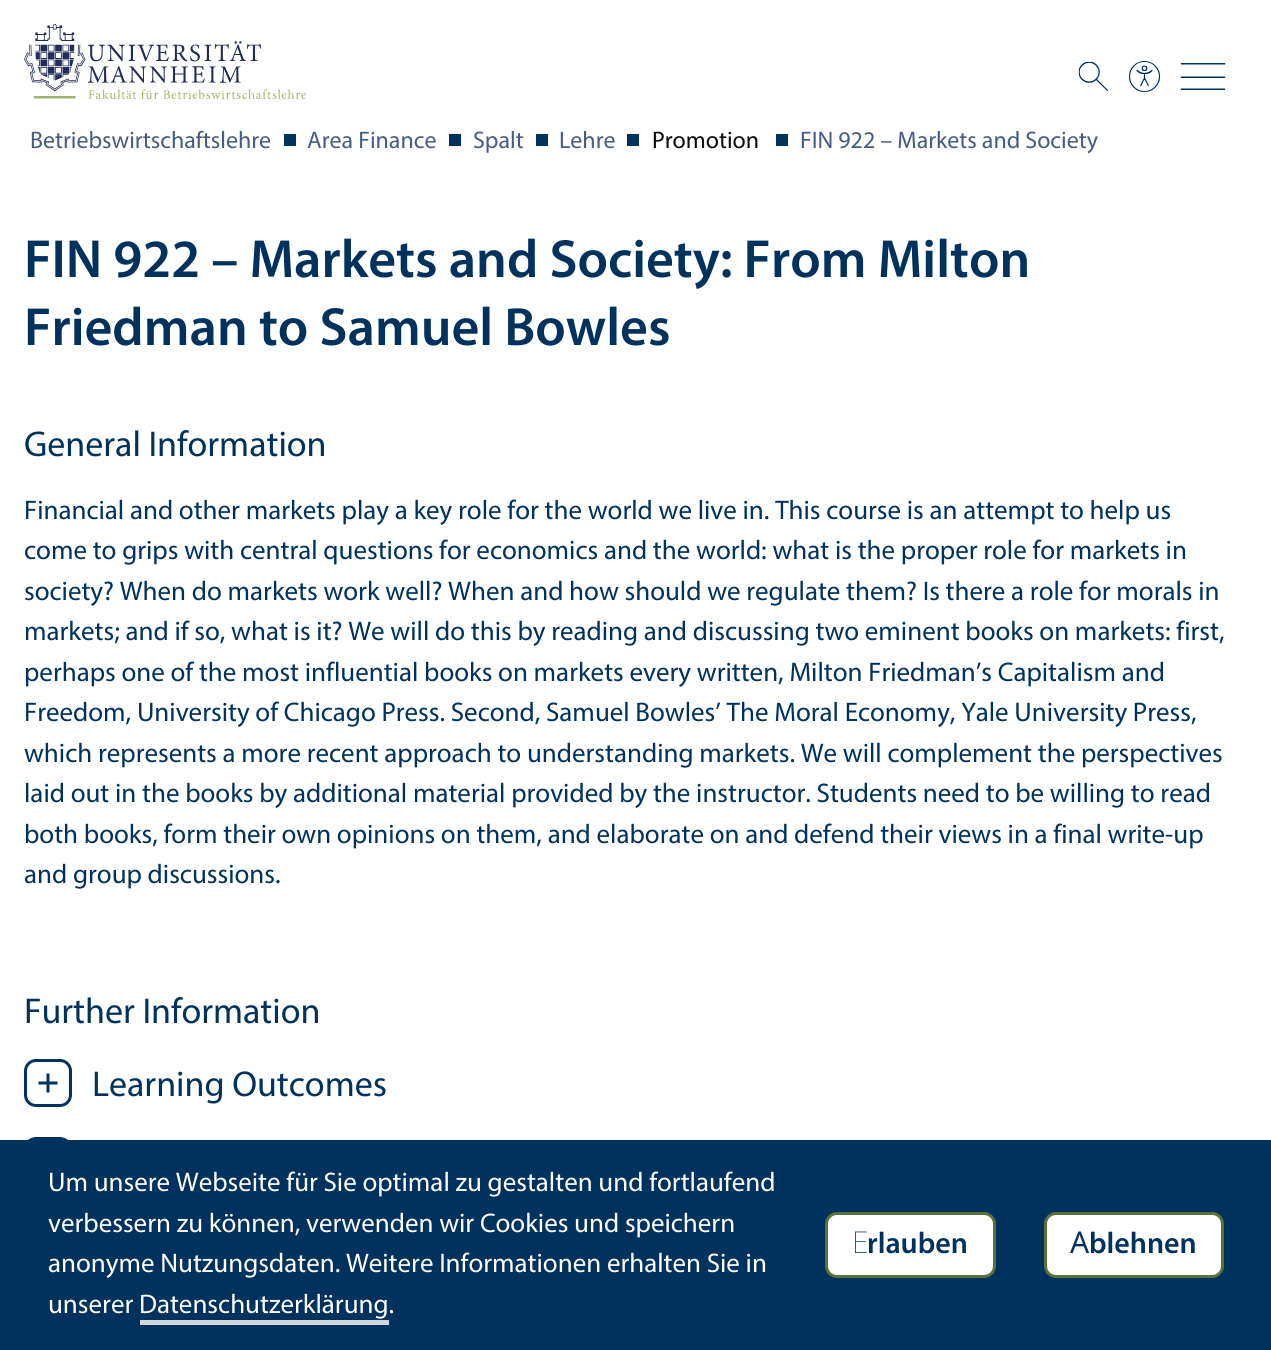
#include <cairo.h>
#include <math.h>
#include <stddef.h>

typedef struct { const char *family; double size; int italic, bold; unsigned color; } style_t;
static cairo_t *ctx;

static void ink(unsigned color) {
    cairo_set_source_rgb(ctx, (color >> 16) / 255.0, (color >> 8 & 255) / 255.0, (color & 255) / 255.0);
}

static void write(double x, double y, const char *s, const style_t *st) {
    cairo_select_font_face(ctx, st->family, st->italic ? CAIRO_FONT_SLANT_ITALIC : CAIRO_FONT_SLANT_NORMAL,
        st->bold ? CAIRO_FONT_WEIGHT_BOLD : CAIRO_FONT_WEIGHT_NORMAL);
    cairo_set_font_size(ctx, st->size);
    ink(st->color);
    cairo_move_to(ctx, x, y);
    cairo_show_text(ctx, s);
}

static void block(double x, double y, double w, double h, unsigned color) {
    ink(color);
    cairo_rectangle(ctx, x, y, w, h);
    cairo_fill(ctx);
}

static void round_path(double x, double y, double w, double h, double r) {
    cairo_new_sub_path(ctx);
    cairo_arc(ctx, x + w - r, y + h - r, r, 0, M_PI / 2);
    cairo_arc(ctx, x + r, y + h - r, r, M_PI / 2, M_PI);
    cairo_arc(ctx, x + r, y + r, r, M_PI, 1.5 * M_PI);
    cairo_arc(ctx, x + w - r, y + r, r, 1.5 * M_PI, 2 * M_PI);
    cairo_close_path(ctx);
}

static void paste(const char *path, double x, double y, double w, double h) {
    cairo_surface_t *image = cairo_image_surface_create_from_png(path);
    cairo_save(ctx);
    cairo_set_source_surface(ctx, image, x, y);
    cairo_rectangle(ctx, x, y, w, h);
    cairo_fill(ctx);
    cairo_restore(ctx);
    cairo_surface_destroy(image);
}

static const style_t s1 = {"myriad", 24, 0, 0, 0x455d82};
static const style_t s2 = {"myriad", 24, 0, 0, 0x0a0a0a};
static const style_t s3 = {"Myriad SemiBold", 54, 0, 0, 0x00325d};
static const style_t s4 = {"myriad", 36, 0, 0, 0x00325d};
static const style_t s5 = {"myriad", 27, 0, 0, 0x00325d};
static const style_t s6 = {"myriad", 27, 0, 0, 0xffffff};
static const style_t s7 = {"Noto Sans Thin", 30, 0, 0, 0x00325d};
static const style_t s8 = {"Myriad SemiBold", 30, 0, 0, 0x00325d};
static const style_t s9 = {"Noto Sans", 30, 0, 0, 0x00325d};

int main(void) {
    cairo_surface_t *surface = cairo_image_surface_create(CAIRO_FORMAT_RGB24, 1271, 1350);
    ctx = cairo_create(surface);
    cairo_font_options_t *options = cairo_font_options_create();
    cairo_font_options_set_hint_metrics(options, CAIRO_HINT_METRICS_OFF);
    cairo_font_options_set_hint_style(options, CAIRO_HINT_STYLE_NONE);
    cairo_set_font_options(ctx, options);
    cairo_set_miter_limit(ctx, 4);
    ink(0xffffff);
    cairo_paint(ctx);
    paste("pic1.png", 24, 24, 282, 75);
    paste("pic2.png", 1078, 61, 31, 31);
    paste("pic3.png", 1128, 61, 33, 31);
    paste("pic4.png", 1180, 63, 46, 27);
    write(30, 148, "Betriebswirtschaftslehre", &s1);
    block(284, 134, 12, 12, 0x00325d);
    write(307, 148, "Area Finance", &s1);
    block(449, 134, 12, 12, 0x00325d);
    write(473, 148, "Spalt", &s1);
    block(536, 134, 12, 12, 0x00325d);
    write(559, 148, "Lehre", &s1);
    block(627, 134, 12, 12, 0x00325d);
    write(652, 148, "Promotion", &s2);
    block(776, 134, 12, 12, 0x00325d);
    write(800, 148, "FIN 922 – Markets and Society", &s1);
    write(24, 277, "FIN 922 – Markets and Society: From Milton", &s3);
    write(24, 345, "Friedman to Samuel Bowles", &s3);
    write(24, 456, "General Information", &s4);
    write(24, 519, "Financial and other markets play a key role for the world we live in. This course is an attempt to help us", &s5);
    write(24, 559, "come to grips with central questions for economics and the world: what is the proper role for markets in", &s5);
    write(24, 600, "society? When do markets work well? When and how should we regulate them? Is there a role for morals in", &s5);
    write(24, 640, "markets; and if so, what is it? We will do this by reading and discussing two eminent books on markets: first,", &s5);
    write(24, 681, "perhaps one of the most influential books on markets every written, Milton Friedman’s Capitalism and", &s5);
    write(24, 721, "Freedom, University of Chicago Press. Second, Samuel Bowles’ The Moral Economy, Yale University Press,", &s5);
    write(24, 762, "which represents a more recent approach to understanding markets. We will complement the perspectives", &s5);
    write(24, 802, "laid out in the books by additional material provided by the instructor. Students need to be willing to read", &s5);
    write(24, 843, "both books, form their own opinions on them, and elaborate on and defend their views in a final write-up", &s5);
    write(24, 883, "and group discussions.", &s5);
    write(24, 1023, "Further Information", &s4);
    round_path(25.5, 1060.5, 45, 45, 10.5);
    cairo_set_line_width(ctx, 3);
    cairo_stroke(ctx);
    write(92, 1096, "Learning Outcomes", &s4);
    cairo_new_path(ctx);
    cairo_move_to(ctx, 38.5, 1083);
    cairo_line_to(ctx, 57.5, 1083);
    cairo_move_to(ctx, 48, 1073.5);
    cairo_line_to(ctx, 48, 1092.5);
    cairo_stroke(ctx);
    round_path(25.5, 1138.5, 45, 45, 10.5);
    cairo_stroke(ctx);
    block(0, 1140, 1271, 210, 0x00325d);
    write(48, 1191, "Um unsere Webseite für Sie optimal zu gestalten und fortlaufend", &s6);
    write(48, 1232, "verbessern zu können, verwenden wir Cookies und speichern", &s6);
    write(48, 1272, "anonyme Nutzungsdaten. Weitere Informationen erhalten Sie in", &s6);
    write(48, 1313, "unserer Datenschutzerklärung.", &s6);
    block(140, 1320, 249, 5, 0xd1d7df);
    ink(0xffffff);
    round_path(826.5, 1213.5, 168, 63, 10.5);
    cairo_fill_preserve(ctx);
    ink(0x5a723a);
    cairo_stroke(ctx);
    write(852, 1253, "E", &s7);
    write(867, 1253, "rlauben", &s8);
    ink(0xffffff);
    round_path(1045.5, 1213.5, 177, 63, 10.5);
    cairo_fill_preserve(ctx);
    ink(0x5a723a);
    cairo_stroke(ctx);
    write(1070, 1253, "A", &s9);
    write(1089, 1253, "blehnen", &s8);
    cairo_surface_write_to_png(surface, "screenshot.png");
    cairo_font_options_destroy(options);
    cairo_destroy(ctx);
    cairo_surface_destroy(surface);
    return 0;
}
